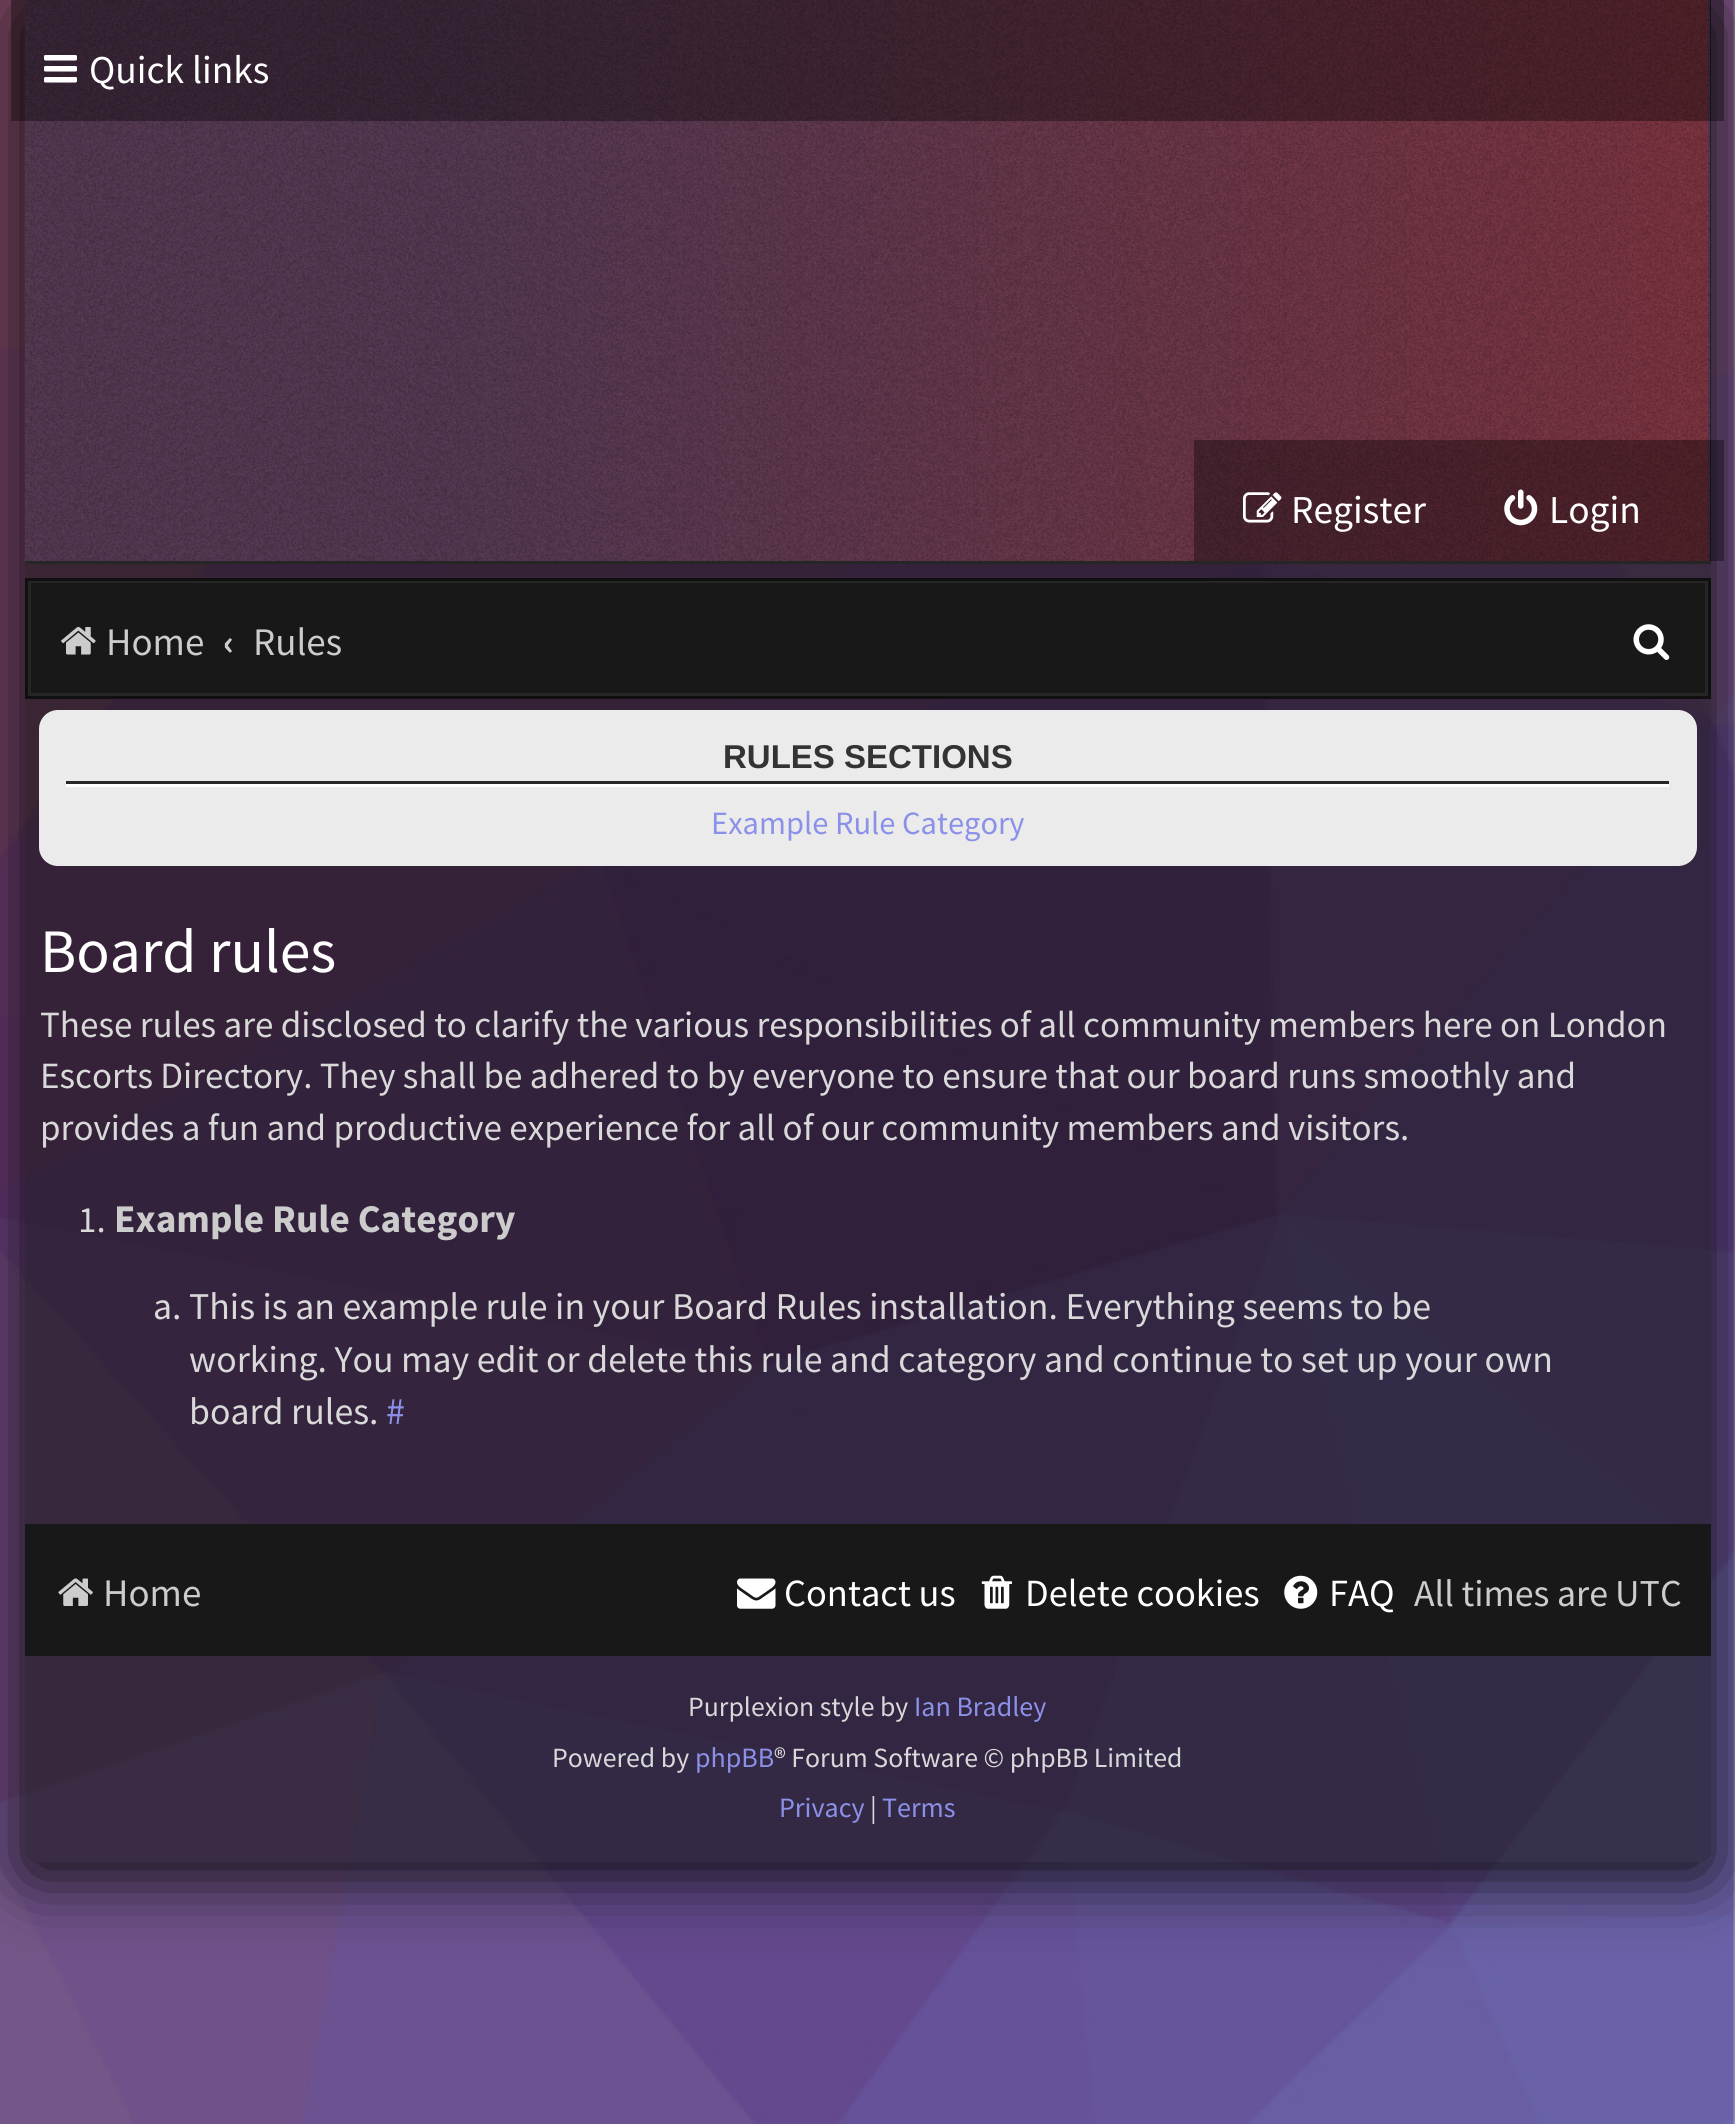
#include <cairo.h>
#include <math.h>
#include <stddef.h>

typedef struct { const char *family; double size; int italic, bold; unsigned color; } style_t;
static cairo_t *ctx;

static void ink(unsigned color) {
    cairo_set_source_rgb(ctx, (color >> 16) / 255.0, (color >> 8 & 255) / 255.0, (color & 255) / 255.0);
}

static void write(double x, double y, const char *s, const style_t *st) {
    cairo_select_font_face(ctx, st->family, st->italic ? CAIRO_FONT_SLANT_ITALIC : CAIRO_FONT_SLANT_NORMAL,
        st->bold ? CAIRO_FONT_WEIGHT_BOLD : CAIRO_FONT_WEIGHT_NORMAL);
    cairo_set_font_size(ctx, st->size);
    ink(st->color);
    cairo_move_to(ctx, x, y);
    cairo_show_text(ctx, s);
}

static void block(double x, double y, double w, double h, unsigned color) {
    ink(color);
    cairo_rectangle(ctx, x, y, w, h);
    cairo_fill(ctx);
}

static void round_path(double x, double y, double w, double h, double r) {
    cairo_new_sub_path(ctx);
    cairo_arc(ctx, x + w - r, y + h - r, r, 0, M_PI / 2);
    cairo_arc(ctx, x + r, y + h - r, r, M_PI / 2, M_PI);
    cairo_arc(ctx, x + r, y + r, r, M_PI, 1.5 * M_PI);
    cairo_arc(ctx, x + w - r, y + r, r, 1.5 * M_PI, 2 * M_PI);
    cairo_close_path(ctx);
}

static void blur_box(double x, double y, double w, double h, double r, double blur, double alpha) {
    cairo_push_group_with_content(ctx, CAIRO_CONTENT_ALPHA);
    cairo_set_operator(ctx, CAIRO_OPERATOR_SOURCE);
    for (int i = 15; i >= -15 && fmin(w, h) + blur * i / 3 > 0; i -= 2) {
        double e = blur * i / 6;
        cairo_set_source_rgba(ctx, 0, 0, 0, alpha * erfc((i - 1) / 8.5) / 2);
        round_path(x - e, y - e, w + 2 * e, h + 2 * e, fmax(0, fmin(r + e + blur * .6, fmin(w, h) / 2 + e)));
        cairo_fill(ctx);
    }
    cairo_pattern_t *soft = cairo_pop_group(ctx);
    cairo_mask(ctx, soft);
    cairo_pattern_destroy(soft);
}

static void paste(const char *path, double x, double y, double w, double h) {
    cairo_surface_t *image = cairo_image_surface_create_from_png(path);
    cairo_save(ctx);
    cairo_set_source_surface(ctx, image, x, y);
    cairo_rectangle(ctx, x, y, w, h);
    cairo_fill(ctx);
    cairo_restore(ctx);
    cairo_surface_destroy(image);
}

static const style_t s1 = {"Source Sans Pro", 39.5, 0, 0, 0xffffff};
static const style_t s2 = {"Source Sans Pro", 39, 0, 0, 0xcccccc};
static const style_t s3 = {"Source Sans Pro", 38, 0, 1, 0xcccccc};
static const style_t s4 = {"Liberation Sans", 33, 0, 1, 0x333333};
static const style_t s5 = {"Source Sans Pro", 32.5, 0, 0, 0x8b91e8};
static const style_t s6 = {"Source Sans Pro", 61.75, 0, 0, 0xffffff};
static const style_t s7 = {"Source Sans Pro", 37.05, 0, 0, 0xd9d9d9};
static const style_t s8 = {"Source Sans Pro", 37, 0, 0, 0xd9d9d9};
static const style_t s9 = {"Source Sans Pro", 39.25, 0, 1, 0xcccccc};
static const style_t s10 = {"Source Sans Pro", 37.8, 0, 0, 0xd9d9d9};
static const style_t s11 = {"Source Sans Pro", 38, 0, 0, 0x8b91e8};
static const style_t s12 = {"Source Sans Pro", 38.5, 0, 0, 0xffffff};
static const style_t s13 = {"Source Sans Pro", 37.8, 0, 0, 0xcccccc};
static const style_t s14 = {"Source Sans Pro", 38, 0, 0, 0xcccccc};
static const style_t s15 = {"Source Sans Pro", 27.75, 0, 0, 0xd9d9d9};
static const style_t s16 = {"Source Sans Pro", 28, 0, 0, 0x8b91e8};
static const style_t s17 = {"Source Sans Pro", 28, 0, 0, 0xd9d9d9};

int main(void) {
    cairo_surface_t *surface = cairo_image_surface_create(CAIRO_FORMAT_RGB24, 1735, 2124);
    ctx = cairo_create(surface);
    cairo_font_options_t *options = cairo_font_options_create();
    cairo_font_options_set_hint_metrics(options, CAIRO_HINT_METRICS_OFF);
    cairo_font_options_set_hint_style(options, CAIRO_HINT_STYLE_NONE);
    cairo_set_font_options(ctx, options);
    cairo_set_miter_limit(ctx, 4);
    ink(0xffffff);
    cairo_paint(ctx);
    paste("pic1.png", 0, 0, 1735, 2124);
    cairo_save(ctx);
    cairo_set_fill_rule(ctx, CAIRO_FILL_RULE_EVEN_ODD);
    cairo_new_path(ctx);
    cairo_move_to(ctx, 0, 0);
    cairo_line_to(ctx, 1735, 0);
    cairo_line_to(ctx, 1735, 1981);
    cairo_line_to(ctx, 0, 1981);
    cairo_close_path(ctx);
    cairo_move_to(ctx, 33, 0);
    cairo_line_to(ctx, 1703, 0);
    cairo_curve_to(ctx, 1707.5, 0, 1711, 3.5, 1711, 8);
    cairo_line_to(ctx, 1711, 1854);
    cairo_curve_to(ctx, 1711, 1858.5, 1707.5, 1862, 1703, 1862);
    cairo_line_to(ctx, 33, 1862);
    cairo_curve_to(ctx, 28.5, 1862, 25, 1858.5, 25, 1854);
    cairo_line_to(ctx, 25, 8);
    cairo_curve_to(ctx, 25, 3.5, 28.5, 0, 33, 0);
    cairo_close_path(ctx);
    cairo_clip(ctx);
    ink(0x0d0d0d);
    blur_box(25, 14, 1686, 1862, 8, 34.5, 1);
    cairo_restore(ctx);
    cairo_set_source_rgba(ctx, 0.082, 0.082, 0.082, 0.6);
    round_path(25, 0, 1686, 1862, 8);
    cairo_fill(ctx);
    block(1710, 0, 1, 561, 0x000000);
    paste("pic2.png", 24, 0, 1687, 564);
    block(25, 561, 1686, 3, 0x262626);
    cairo_set_source_rgba(ctx, 0, 0, 0, 0.35);
    cairo_rectangle(ctx, 11, 0, 1713, 121);
    cairo_fill(ctx);
    paste("pic3.png", 44, 55, 33, 28);
    write(89, 83, "Quick links", &s1);
    cairo_set_source_rgba(ctx, 0, 0, 0, 0.35);
    cairo_rectangle(ctx, 1194, 440, 530, 121);
    cairo_fill(ctx);
    paste("pic4.png", 1243, 492, 39, 31);
    write(1291, 523, "Register", &s1);
    paste("pic5.png", 1504, 489, 34, 37);
    write(1549, 523, "Login", &s1);
    ink(0x181818);
    cairo_rectangle(ctx, 29.5, 581.5, 1677, 113);
    cairo_fill_preserve(ctx);
    ink(0x262626);
    cairo_set_line_width(ctx, 3);
    cairo_stroke(ctx);
    cairo_rectangle(ctx, 26.5, 579.5, 1683, 118);
    ink(0x101010);
    cairo_stroke(ctx);
    paste("pic6.png", 61, 626, 35, 29);
    write(106, 655, "Home", &s2);
    write(223, 655, "‹", &s3);
    write(253, 655, "Rules", &s2);
    paste("pic7.png", 1633, 624, 37, 36);
    ink(0xebebeb);
    round_path(39, 710, 1658, 156, 19);
    cairo_fill(ctx);
    block(66, 781, 1603, 3, 0x272727);
    write(723, 768, "RULES SECTIONS", &s4);
    block(66, 784, 1603, 3, 0xffffff);
    write(711, 834, "Example Rule Category", &s5);
    write(40, 972, "Board rules", &s6);
    write(40, 1037, "These rules are disclosed to clarify the various responsibilities of all community members here on London", &s7);
    write(40, 1088, "Escorts Directory. They shall be adhered to by everyone to ensure that our board runs smoothly and", &s7);
    write(40, 1140, "provides a fun and productive experience for all of our community members and visitors.", &s7);
    write(78, 1232, "1.", &s8);
    write(114, 1232, "Example Rule Category", &s9);
    write(153, 1319, "a. This is an example rule in your Board Rules installation. Everything seems to be", &s10);
    write(189, 1372, "working. You may edit or delete this rule and category and continue to set up your own", &s10);
    write(189, 1424, "board rules.", &s10);
    write(386, 1424, "#", &s11);
    block(25, 1524, 1686, 132, 0x181818);
    paste("pic8.png", 58, 1578, 35, 28);
    write(103, 1606, "Home", &s2);
    paste("pic9.png", 737, 1578, 39, 31);
    write(784, 1606, "Contact us", &s12);
    paste("pic10.png", 981, 1575, 31, 34);
    write(1025, 1606, "Delete cookies", &s12);
    paste("pic11.png", 1284, 1575, 34, 34);
    write(1329, 1606, "FAQ", &s12);
    write(1414, 1606, "All times are", &s13);
    write(1615, 1606, "UTC", &s14);
    write(688, 1716, "Purplexion style by", &s15);
    write(914, 1716, "Ian Bradley", &s16);
    write(552, 1767, "Powered by", &s15);
    write(695, 1767, "phpBB", &s16);
    write(774, 1767, "® Forum Software © phpBB Limited", &s15);
    write(779, 1817, "Privacy", &s16);
    write(870, 1817, "|", &s17);
    write(882, 1817, "Terms", &s16);
    cairo_surface_write_to_png(surface, "screenshot.png");
    cairo_font_options_destroy(options);
    cairo_destroy(ctx);
    cairo_surface_destroy(surface);
    return 0;
}
